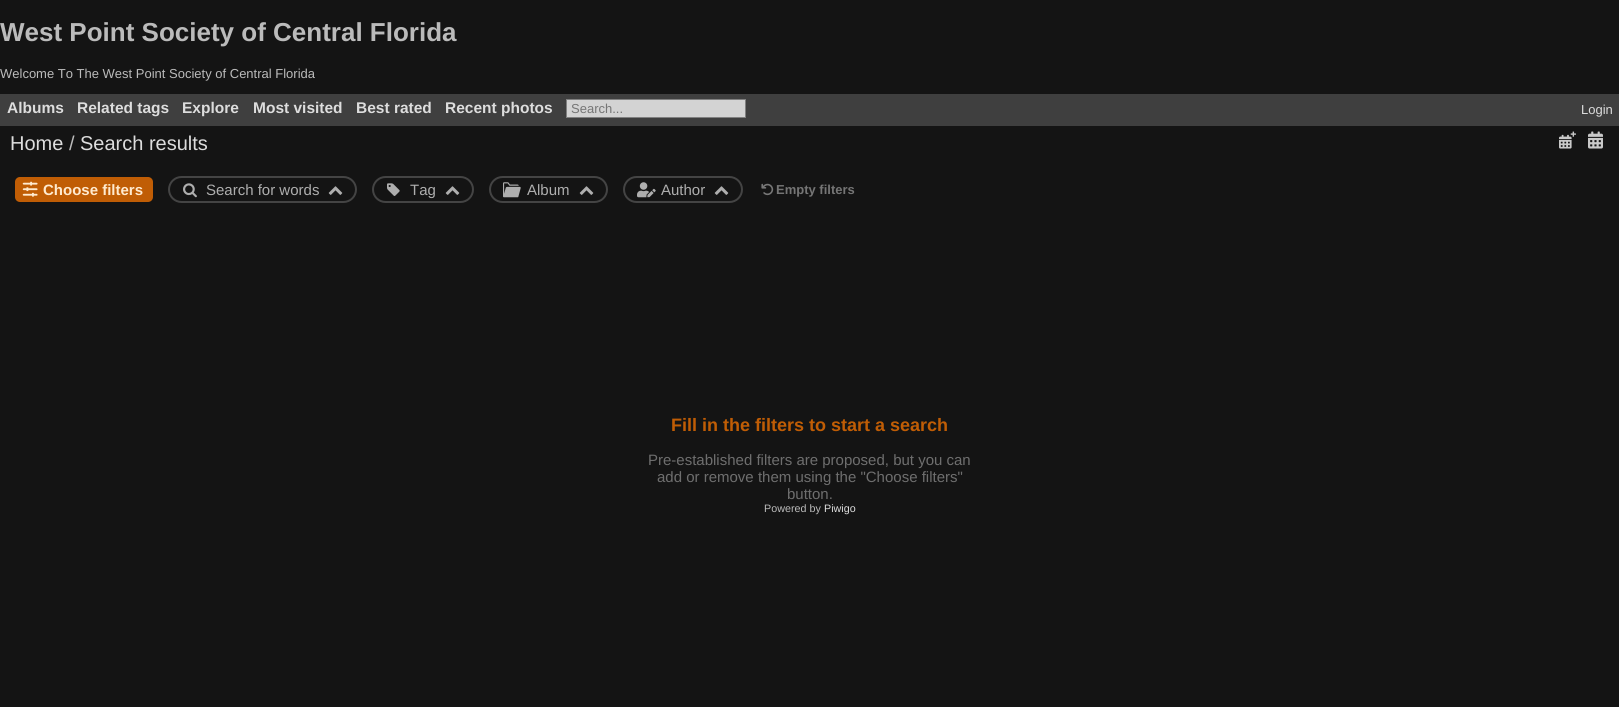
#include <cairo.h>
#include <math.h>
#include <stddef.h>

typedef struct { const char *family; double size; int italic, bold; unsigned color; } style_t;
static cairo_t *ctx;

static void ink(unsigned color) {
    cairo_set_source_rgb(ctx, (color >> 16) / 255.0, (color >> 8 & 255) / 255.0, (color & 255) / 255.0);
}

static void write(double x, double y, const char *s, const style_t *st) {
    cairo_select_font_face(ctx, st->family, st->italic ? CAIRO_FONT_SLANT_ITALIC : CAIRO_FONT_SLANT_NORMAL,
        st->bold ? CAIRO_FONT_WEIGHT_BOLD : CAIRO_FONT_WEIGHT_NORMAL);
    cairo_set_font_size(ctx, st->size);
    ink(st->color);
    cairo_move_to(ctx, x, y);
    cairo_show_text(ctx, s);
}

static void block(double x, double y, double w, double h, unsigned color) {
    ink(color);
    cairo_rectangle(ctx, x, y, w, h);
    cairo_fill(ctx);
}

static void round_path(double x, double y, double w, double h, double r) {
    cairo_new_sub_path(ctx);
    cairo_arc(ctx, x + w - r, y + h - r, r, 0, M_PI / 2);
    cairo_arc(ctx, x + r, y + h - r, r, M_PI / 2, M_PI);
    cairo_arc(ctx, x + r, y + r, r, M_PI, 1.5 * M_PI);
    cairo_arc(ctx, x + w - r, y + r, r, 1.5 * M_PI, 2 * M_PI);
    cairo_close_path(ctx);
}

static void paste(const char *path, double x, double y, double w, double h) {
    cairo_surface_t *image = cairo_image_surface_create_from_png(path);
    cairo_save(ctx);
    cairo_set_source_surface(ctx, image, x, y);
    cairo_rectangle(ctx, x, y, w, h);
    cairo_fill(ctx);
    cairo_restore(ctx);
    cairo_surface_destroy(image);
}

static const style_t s1 = {"Liberation Sans", 26, 0, 1, 0xbbbbbb};
static const style_t s2 = {"Liberation Sans", 13, 0, 0, 0xbbbbbb};
static const style_t s3 = {"Liberation Sans", 15.5, 0, 1, 0xdddddd};
static const style_t s4 = {"Liberation Sans", 13, 0, 0, 0x757575};
static const style_t s5 = {"Liberation Sans", 13, 0, 0, 0xdddddd};
static const style_t s6 = {"Liberation Sans", 20, 0, 0, 0xdddddd};
static const style_t s7 = {"Liberation Sans", 20, 0, 0, 0xbbbbbb};
static const style_t s8 = {"Liberation Sans", 15, 0, 1, 0xffeacf};
static const style_t s9 = {"Liberation Sans", 15, 0, 0, 0xaeaeae};
static const style_t s10 = {"Liberation Sans", 13, 0, 1, 0x757575};
static const style_t s11 = {"Liberation Sans", 18, 0, 1, 0xc05d05};
static const style_t s12 = {"Liberation Sans", 15, 0, 0, 0x6e6e6e};
static const style_t s13 = {"Liberation Sans", 10.75, 0, 0, 0xbbbbbb};
static const style_t s14 = {"Liberation Sans", 10.75, 0, 0, 0xdddddd};

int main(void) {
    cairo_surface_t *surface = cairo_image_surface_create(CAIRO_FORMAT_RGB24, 1619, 707);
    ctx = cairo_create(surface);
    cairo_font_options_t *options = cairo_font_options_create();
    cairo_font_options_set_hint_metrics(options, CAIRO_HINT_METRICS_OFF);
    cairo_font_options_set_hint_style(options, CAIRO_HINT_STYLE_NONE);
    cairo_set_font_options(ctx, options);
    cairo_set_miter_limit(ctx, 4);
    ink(0x141414);
    cairo_paint(ctx);
    write(0, 41, "West Point Society of Central Florida", &s1);
    write(0, 78, "Welcome To The West Point Society of Central Florida", &s2);
    block(0, 94, 1619, 32, 0x3f3f3f);
    write(7, 113, "Albums", &s3);
    write(77, 113, "Related tags", &s3);
    write(182, 113, "Explore", &s3);
    write(253, 113, "Most visited", &s3);
    write(356, 113, "Best rated", &s3);
    write(445, 113, "Recent photos", &s3);
    ink(0xd3d3d3);
    cairo_rectangle(ctx, 566.5, 99.5, 179, 18);
    cairo_fill_preserve(ctx);
    ink(0x808080);
    cairo_set_line_width(ctx, 1);
    cairo_stroke(ctx);
    write(571, 113, "Search...", &s4);
    write(1581, 114, "Login", &s5);
    write(10, 150, "Home", &s6);
    write(69, 150, "/", &s7);
    write(80, 150, "Search results", &s6);
    paste("pic1.png", 1559, 131, 17, 18);
    paste("pic2.png", 1588, 131, 15, 18);
    ink(0xc05d05);
    round_path(15, 177, 138, 25, 5);
    cairo_fill(ctx);
    paste("pic3.png", 22, 181, 16, 16);
    write(43, 195, "Choose filters", &s8);
    round_path(169, 177, 187, 25, 12.5);
    ink(0x444444);
    cairo_set_line_width(ctx, 2);
    cairo_stroke(ctx);
    paste("pic4.png", 183, 183, 14, 15);
    write(206, 195, "Search for words", &s9);
    paste("pic5.png", 328, 186, 15, 9);
    round_path(373, 177, 100, 25, 12.5);
    ink(0x444444);
    cairo_stroke(ctx);
    paste("pic6.png", 387, 183, 13, 13);
    write(410, 195, "Tag", &s9);
    paste("pic5.png", 445, 186, 15, 9);
    round_path(490, 177, 117, 25, 12.5);
    ink(0x444444);
    cairo_stroke(ctx);
    paste("pic7.png", 503, 182, 18, 16);
    write(527, 195, "Album", &s9);
    paste("pic5.png", 579, 186, 15, 9);
    round_path(624, 177, 118, 25, 12.5);
    ink(0x444444);
    cairo_stroke(ctx);
    paste("pic8.png", 637, 182, 19, 16);
    write(661, 195, "Author", &s9);
    paste("pic5.png", 714, 186, 15, 9);
    paste("pic9.png", 761, 183, 13, 13);
    write(776, 194, "Empty filters", &s10);
    write(671, 431, "Fill in the filters to start a search", &s11);
    write(648, 465, "Pre-established filters are proposed, but you can", &s12);
    write(657, 482, "add or remove them using the \"Choose filters\"", &s12);
    write(787, 499, "button.", &s12);
    write(764, 512, "Powered by", &s13);
    write(824, 512, "Piwigo", &s14);
    cairo_surface_write_to_png(surface, "screenshot.png");
    cairo_font_options_destroy(options);
    cairo_destroy(ctx);
    cairo_surface_destroy(surface);
    return 0;
}
